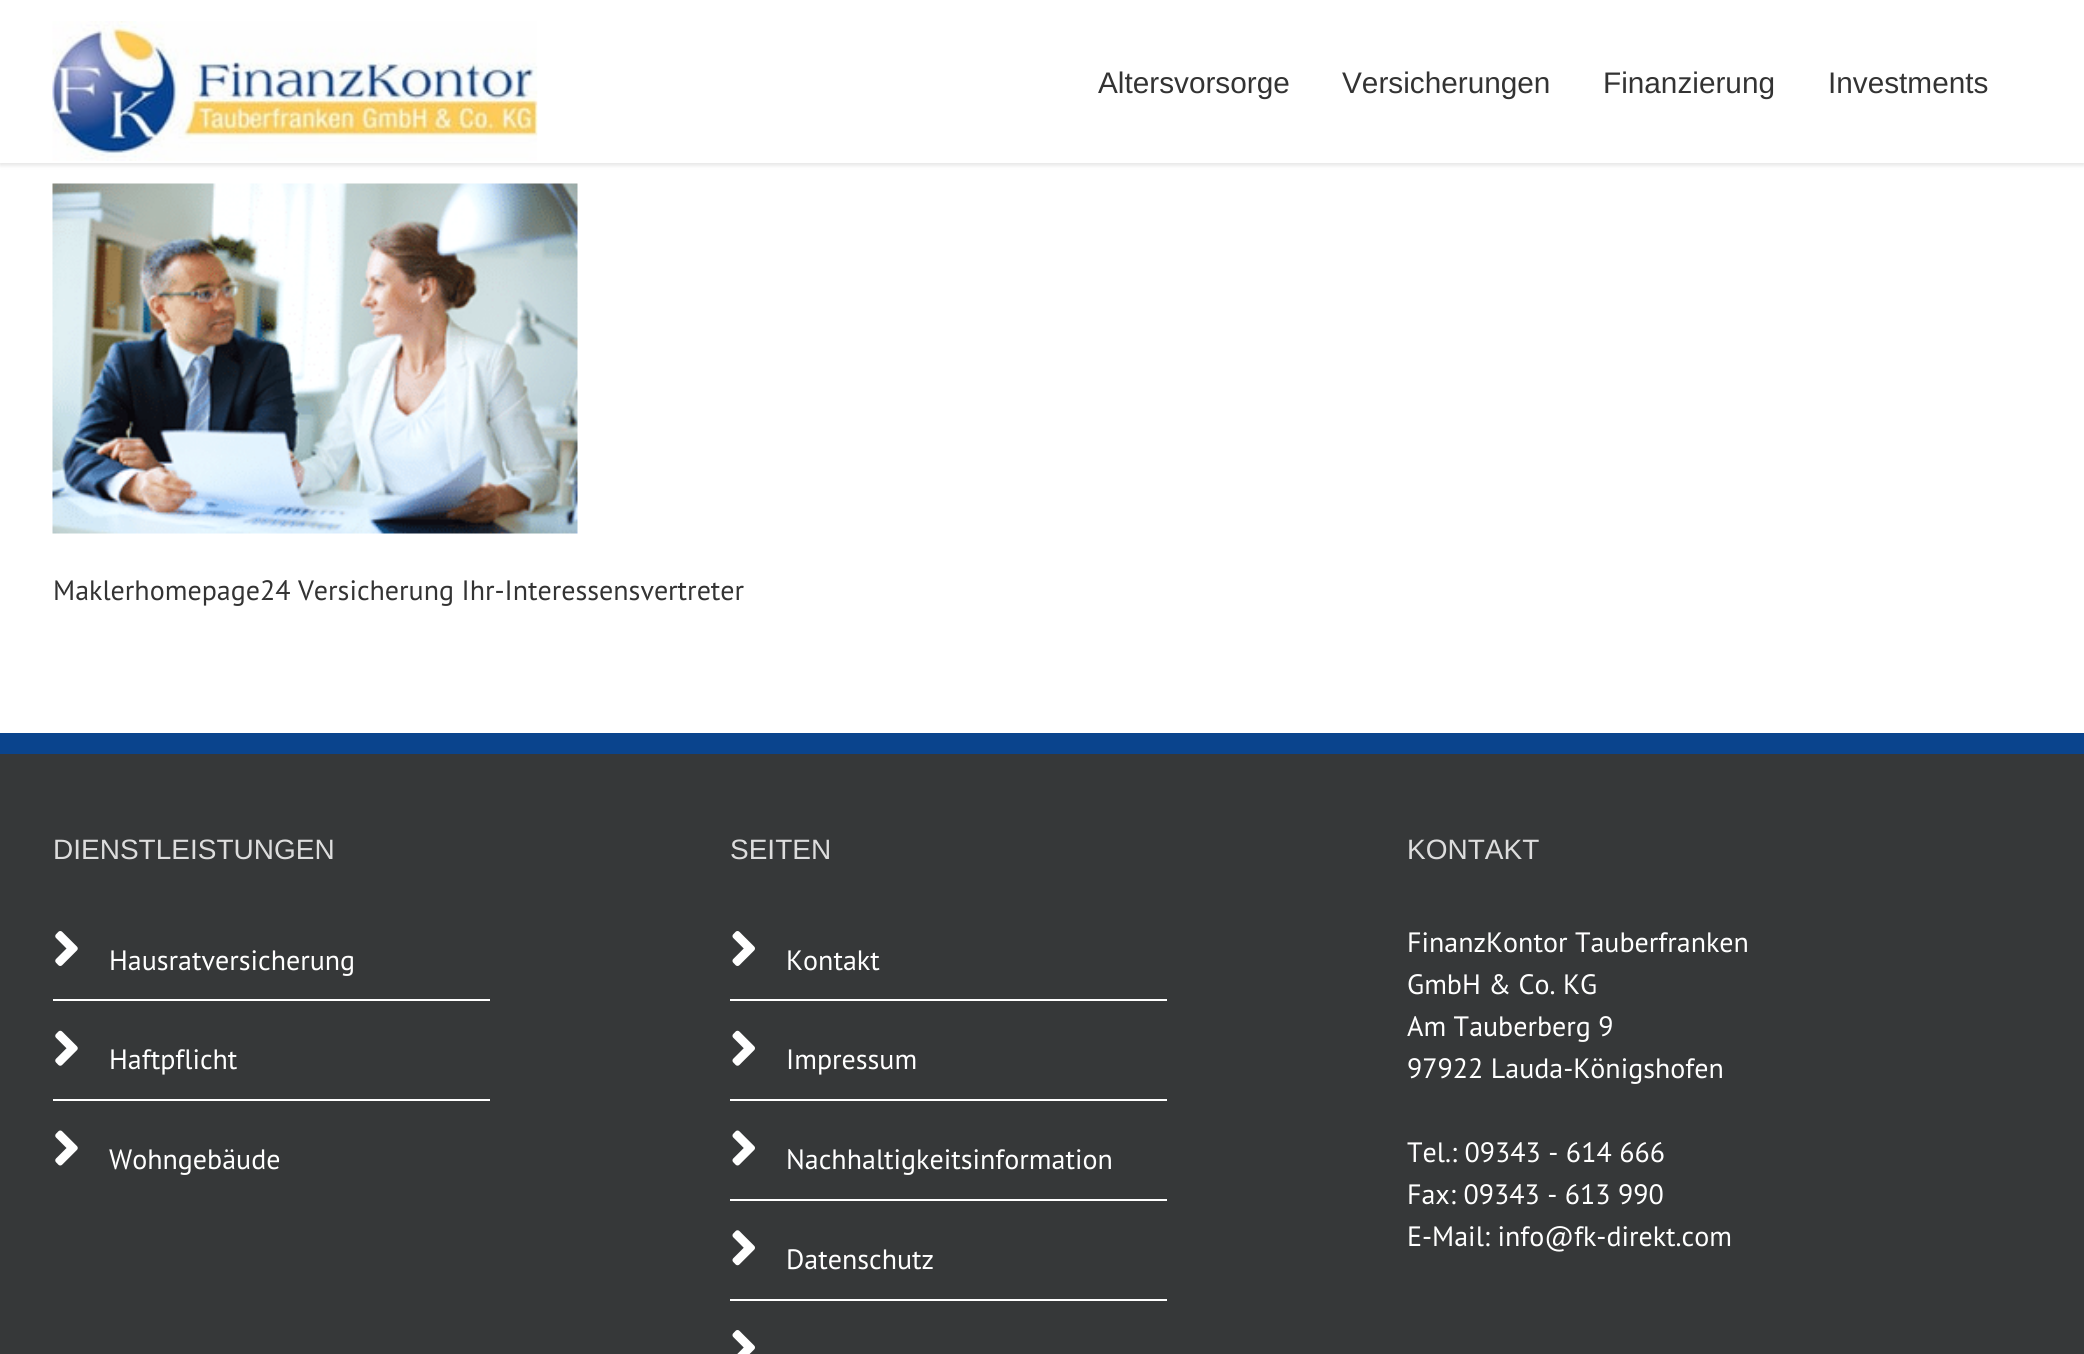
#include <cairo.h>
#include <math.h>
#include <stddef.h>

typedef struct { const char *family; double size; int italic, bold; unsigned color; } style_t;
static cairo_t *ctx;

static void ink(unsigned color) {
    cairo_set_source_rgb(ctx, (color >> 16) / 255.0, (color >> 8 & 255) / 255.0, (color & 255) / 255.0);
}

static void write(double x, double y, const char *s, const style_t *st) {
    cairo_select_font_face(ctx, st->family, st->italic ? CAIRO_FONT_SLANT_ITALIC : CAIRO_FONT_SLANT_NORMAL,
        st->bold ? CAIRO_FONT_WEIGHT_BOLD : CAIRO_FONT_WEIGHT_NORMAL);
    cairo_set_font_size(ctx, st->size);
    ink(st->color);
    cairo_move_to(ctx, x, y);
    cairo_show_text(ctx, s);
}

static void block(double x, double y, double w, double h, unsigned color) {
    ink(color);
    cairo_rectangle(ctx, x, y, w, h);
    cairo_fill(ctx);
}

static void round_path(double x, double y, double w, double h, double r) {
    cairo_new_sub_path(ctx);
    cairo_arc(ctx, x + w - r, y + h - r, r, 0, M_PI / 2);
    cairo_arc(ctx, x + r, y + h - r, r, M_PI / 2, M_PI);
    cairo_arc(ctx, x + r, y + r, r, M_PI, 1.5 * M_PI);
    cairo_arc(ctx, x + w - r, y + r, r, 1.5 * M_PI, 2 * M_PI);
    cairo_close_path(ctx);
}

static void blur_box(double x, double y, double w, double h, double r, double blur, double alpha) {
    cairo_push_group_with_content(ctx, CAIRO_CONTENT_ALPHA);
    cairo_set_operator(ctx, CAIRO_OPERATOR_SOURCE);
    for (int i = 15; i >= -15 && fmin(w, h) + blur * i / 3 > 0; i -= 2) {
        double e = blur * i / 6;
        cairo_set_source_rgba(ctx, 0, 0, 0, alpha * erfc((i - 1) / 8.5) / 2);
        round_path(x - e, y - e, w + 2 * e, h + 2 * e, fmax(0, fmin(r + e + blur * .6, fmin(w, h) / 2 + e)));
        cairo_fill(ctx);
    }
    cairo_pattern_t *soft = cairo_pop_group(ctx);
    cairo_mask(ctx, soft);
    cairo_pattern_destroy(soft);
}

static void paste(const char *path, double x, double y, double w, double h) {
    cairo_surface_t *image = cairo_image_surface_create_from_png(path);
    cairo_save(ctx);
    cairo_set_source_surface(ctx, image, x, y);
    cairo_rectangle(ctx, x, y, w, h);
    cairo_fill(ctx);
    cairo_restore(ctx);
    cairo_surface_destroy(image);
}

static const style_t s1 = {"Liberation Sans", 29.75, 0, 0, 0x333333};
static const style_t s2 = {"PT Sans", 28, 0, 0, 0x333333};
static const style_t s3 = {"Liberation Sans", 28, 0, 0, 0xdddddd};
static const style_t s4 = {"PT Sans", 28, 0, 0, 0xffffff};

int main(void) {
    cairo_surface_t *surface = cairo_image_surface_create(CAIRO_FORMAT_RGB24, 2084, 1354);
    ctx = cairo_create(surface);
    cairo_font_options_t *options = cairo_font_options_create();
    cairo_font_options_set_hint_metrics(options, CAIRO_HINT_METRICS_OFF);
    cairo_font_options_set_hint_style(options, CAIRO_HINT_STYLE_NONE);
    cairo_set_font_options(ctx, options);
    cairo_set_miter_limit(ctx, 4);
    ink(0xffffff);
    cairo_paint(ctx);
    cairo_save(ctx);
    cairo_set_fill_rule(ctx, CAIRO_FILL_RULE_EVEN_ODD);
    cairo_new_path(ctx);
    cairo_move_to(ctx, 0, 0);
    cairo_line_to(ctx, 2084, 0);
    cairo_line_to(ctx, 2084, 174);
    cairo_line_to(ctx, 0, 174);
    cairo_close_path(ctx);
    cairo_move_to(ctx, 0, 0);
    cairo_line_to(ctx, 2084, 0);
    cairo_line_to(ctx, 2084, 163);
    cairo_line_to(ctx, 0, 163);
    cairo_close_path(ctx);
    cairo_clip(ctx);
    ink(0x000000);
    blur_box(0, 2, 2084, 163, 0, 2.5, 0.12);
    cairo_restore(ctx);
    cairo_set_source_rgba(ctx, 1, 1, 1, 0.99);
    cairo_rectangle(ctx, 0, 162, 2084, 1);
    cairo_fill(ctx);
    paste("pic1.png", 52, 21, 486, 140);
    write(1098, 93, "Altersvorsorge", &s1);
    write(1342, 93, "Versicherungen", &s1);
    write(1603, 93, "Finanzierung", &s1);
    write(1828, 93, "Investments", &s1);
    paste("pic2.png", 52, 183, 526, 351);
    write(53, 600, "Maklerhomepage24 Versicherung Ihr-Interessensvertreter", &s2);
    block(0, 754, 2084, 600, 0x363839);
    block(0, 733, 2084, 21, 0x0a448d);
    write(53, 859, "DIENSTLEISTUNGEN", &s3);
    paste("pic3.png", 55, 931, 23, 35);
    write(109, 970, "Hausratversicherung", &s4);
    block(53, 999, 437, 2, 0xffffff);
    paste("pic4.png", 55, 1030, 23, 36);
    write(109, 1069, "Haftpflicht", &s4);
    block(53, 1099, 437, 2, 0xffffff);
    paste("pic5.png", 55, 1130, 23, 36);
    write(109, 1169, "Wohngebäude", &s4);
    write(730, 859, "SEITEN", &s3);
    paste("pic6.png", 732, 931, 23, 35);
    write(786, 970, "Kontakt", &s4);
    block(730, 999, 437, 2, 0xffffff);
    paste("pic7.png", 732, 1030, 23, 36);
    write(786, 1069, "Impressum", &s4);
    block(730, 1099, 437, 2, 0xffffff);
    paste("pic8.png", 732, 1130, 23, 36);
    write(786, 1169, "Nachhaltigkeitsinformation", &s4);
    block(730, 1199, 437, 2, 0xffffff);
    paste("pic9.png", 732, 1230, 23, 36);
    write(786, 1269, "Datenschutz", &s4);
    block(730, 1299, 437, 2, 0xffffff);
    paste("pic10.png", 732, 1330, 23, 24);
    write(1407, 859, "KONTAKT", &s3);
    write(1407, 952, "FinanzKontor Tauberfranken", &s4);
    write(1407, 994, "GmbH & Co. KG", &s4);
    write(1407, 1036, "Am Tauberberg 9", &s4);
    write(1407, 1078, "97922 Lauda-Königshofen", &s4);
    write(1407, 1162, "Tel.: 09343 - 614 666", &s4);
    write(1407, 1204, "Fax: 09343 - 613 990", &s4);
    write(1407, 1246, "E-Mail: info@fk-direkt.com", &s4);
    cairo_surface_write_to_png(surface, "screenshot.png");
    cairo_font_options_destroy(options);
    cairo_destroy(ctx);
    cairo_surface_destroy(surface);
    return 0;
}
